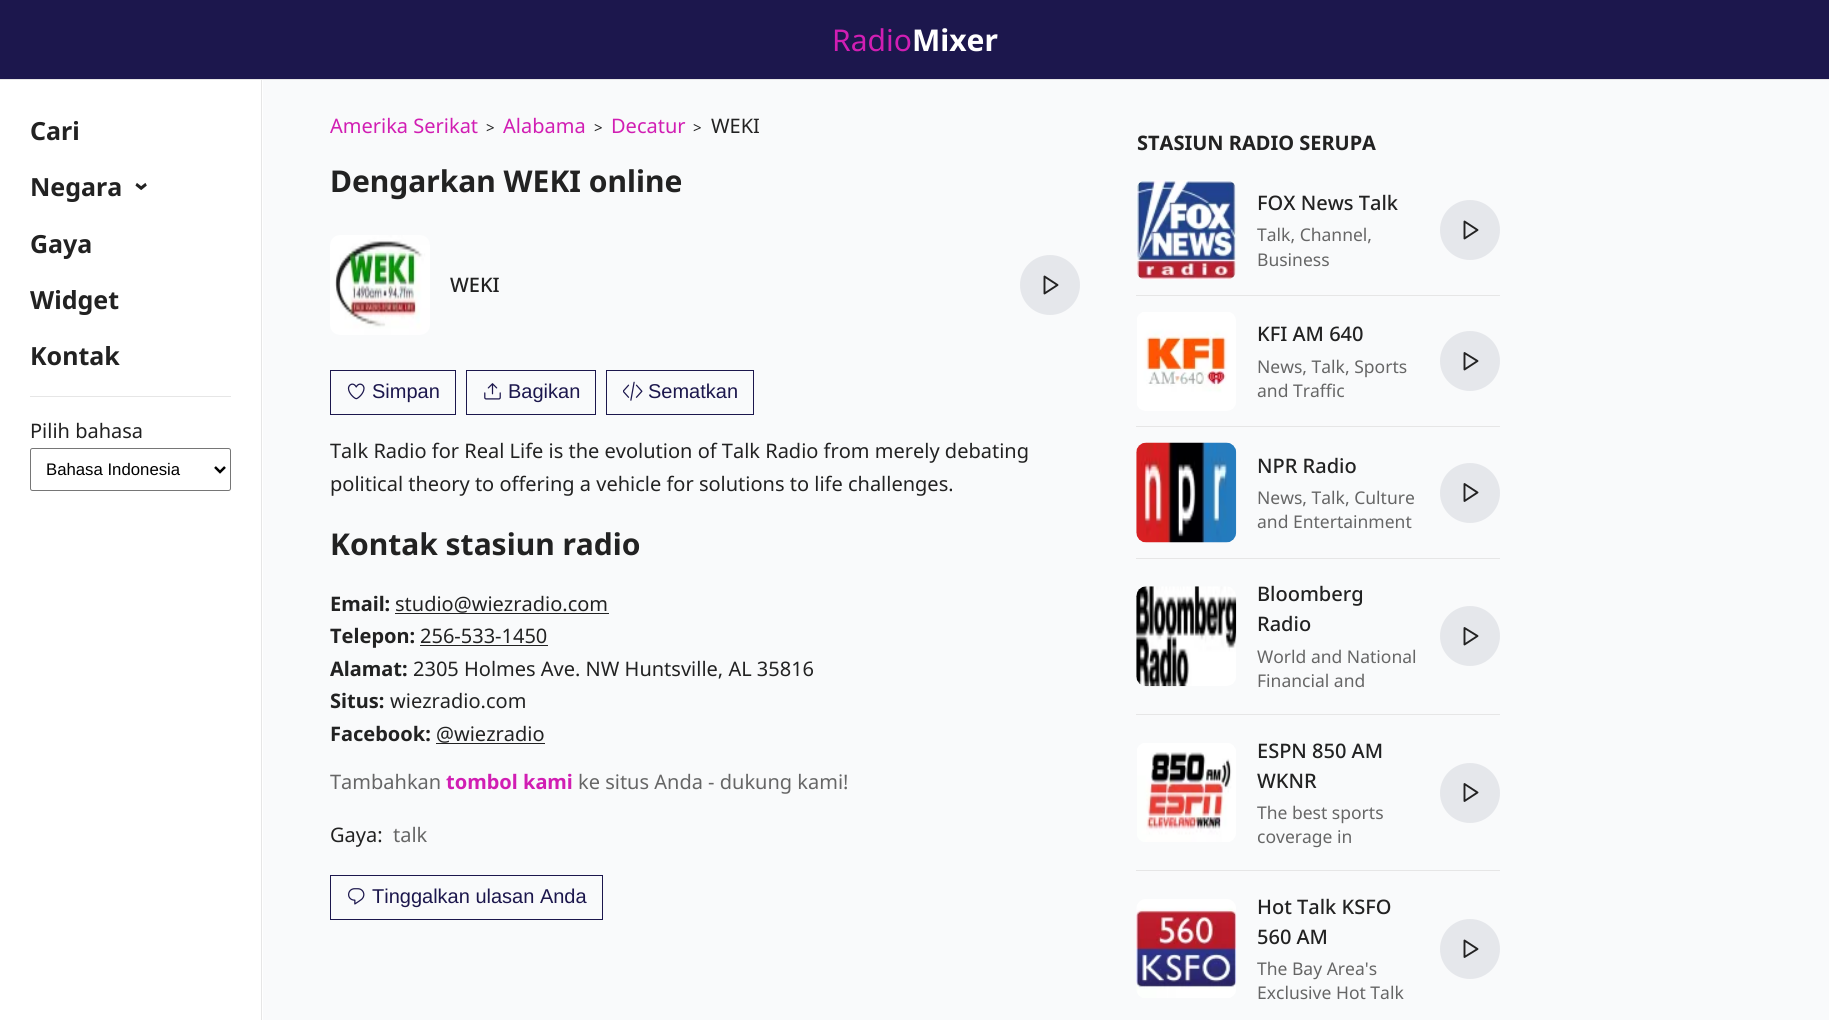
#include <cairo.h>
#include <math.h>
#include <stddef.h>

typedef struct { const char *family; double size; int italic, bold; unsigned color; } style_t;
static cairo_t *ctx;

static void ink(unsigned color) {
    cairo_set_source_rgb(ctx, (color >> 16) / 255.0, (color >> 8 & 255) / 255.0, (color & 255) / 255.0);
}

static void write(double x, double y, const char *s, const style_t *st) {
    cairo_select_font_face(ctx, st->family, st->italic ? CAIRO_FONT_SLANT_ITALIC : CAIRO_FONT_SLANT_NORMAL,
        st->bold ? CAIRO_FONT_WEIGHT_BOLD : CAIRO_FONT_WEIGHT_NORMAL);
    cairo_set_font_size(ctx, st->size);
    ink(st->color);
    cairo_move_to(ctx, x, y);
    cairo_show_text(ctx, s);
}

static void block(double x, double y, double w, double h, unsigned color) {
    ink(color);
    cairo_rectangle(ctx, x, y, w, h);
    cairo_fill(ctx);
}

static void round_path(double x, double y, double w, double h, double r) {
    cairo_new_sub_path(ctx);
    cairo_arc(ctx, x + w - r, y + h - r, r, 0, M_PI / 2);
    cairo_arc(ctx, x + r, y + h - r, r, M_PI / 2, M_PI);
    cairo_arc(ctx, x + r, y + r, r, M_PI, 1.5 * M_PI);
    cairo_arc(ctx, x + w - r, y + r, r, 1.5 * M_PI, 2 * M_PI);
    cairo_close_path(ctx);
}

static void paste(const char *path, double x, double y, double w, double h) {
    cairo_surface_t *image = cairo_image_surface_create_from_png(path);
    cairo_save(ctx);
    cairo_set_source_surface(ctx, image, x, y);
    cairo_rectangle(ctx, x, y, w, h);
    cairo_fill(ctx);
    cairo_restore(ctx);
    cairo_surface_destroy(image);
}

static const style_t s1 = {"Noto Sans", 30, 0, 0, 0xd11eb3};
static const style_t s2 = {"Noto Sans", 30, 0, 1, 0xffffff};
static const style_t s3 = {"Noto Sans", 25, 0, 1, 0x222222};
static const style_t s4 = {"Noto Sans", 20, 0, 0, 0x222222};
static const style_t s5 = {"Liberation Sans", 16.75, 0, 0, 0x000000};
static const style_t s6 = {"Noto Sans", 20, 0, 0, 0xd11eb3};
static const style_t s7 = {"Noto Sans", 15, 0, 0, 0x222222};
static const style_t s8 = {"Noto Sans", 30, 0, 1, 0x222222};
static const style_t s9 = {"Noto Sans Medium", 20, 0, 0, 0x222222};
static const style_t s10 = {"Liberation Sans", 20, 0, 0, 0x1c174d};
static const style_t s11 = {"Noto Sans", 20, 0, 1, 0x222222};
static const style_t s12 = {"Noto Sans", 20, 0, 0, 0x666666};
static const style_t s13 = {"Noto Sans", 20, 0, 1, 0xd11eb3};
static const style_t s14 = {"Noto Sans", 17.5, 0, 0, 0x666666};

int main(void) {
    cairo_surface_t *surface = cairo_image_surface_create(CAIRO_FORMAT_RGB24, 1829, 1020);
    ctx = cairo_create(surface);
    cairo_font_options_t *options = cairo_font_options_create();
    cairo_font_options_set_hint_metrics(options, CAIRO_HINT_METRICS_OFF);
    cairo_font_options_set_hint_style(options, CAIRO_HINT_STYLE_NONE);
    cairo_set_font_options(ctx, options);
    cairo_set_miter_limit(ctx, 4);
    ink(0xf9fafb);
    cairo_paint(ctx);
    block(0, 0, 1829, 79, 0x1c174d);
    block(0, 79, 1829, 1, 0xe6e6e6);
    write(832, 51, "Radio", &s1);
    write(912, 51, "Mixer", &s2);
    block(0, 80, 263, 940, 0xffffff);
    block(261, 80, 1, 940, 0xe6e6e6);
    write(30, 140, "Cari", &s3);
    write(30, 196, "Negara", &s3);
    cairo_save(ctx);
    cairo_translate(ctx, 148, 191);
    cairo_rotate(ctx, -90 * M_PI / 180);
    write(0, 0, "‹", &s3);
    cairo_restore(ctx);
    write(30, 253, "Gaya", &s3);
    write(30, 309, "Widget", &s3);
    write(30, 365, "Kontak", &s3);
    block(30, 396, 201, 1, 0xe6e6e6);
    write(30, 438, "Pilih bahasa", &s4);
    round_path(30.5, 448.5, 200, 42, 2);
    ink(0x767676);
    cairo_set_line_width(ctx, 1);
    cairo_stroke(ctx);
    cairo_new_path(ctx);
    cairo_move_to(ctx, 215, 467);
    cairo_line_to(ctx, 220, 472);
    cairo_line_to(ctx, 225, 467);
    ink(0x000000);
    cairo_set_line_width(ctx, 2.5);
    cairo_stroke(ctx);
    write(46, 475, "Bahasa Indonesia", &s5);
    write(330, 133, "Amerika Serikat", &s6);
    write(486, 133, ">", &s7);
    write(503, 133, "Alabama", &s6);
    write(594, 133, ">", &s7);
    write(611, 133, "Decatur", &s6);
    write(693, 133, ">", &s7);
    write(711, 133, "WEKI", &s4);
    write(330, 192, "Dengarkan WEKI online", &s8);
    paste("pic1.png", 330, 235, 100, 100);
    write(450, 292, "WEKI", &s9);
    ink(0xe5e7eb);
    cairo_new_path(ctx);
    cairo_arc(ctx, 1050, 285, 30, 0, 2 * M_PI);
    cairo_fill(ctx);
    cairo_new_path(ctx);
    cairo_move_to(ctx, 1044.5, 276.5);
    cairo_line_to(ctx, 1057.5, 285);
    cairo_line_to(ctx, 1044.5, 293.5);
    cairo_close_path(ctx);
    ink(0x222222);
    cairo_set_line_width(ctx, 1.9);
    cairo_set_line_cap(ctx, CAIRO_LINE_CAP_ROUND);
    cairo_set_line_join(ctx, CAIRO_LINE_JOIN_ROUND);
    cairo_stroke(ctx);
    cairo_rectangle(ctx, 330.5, 370.5, 125, 44);
    ink(0x1c174d);
    cairo_set_line_width(ctx, 1);
    cairo_set_line_cap(ctx, CAIRO_LINE_CAP_BUTT);
    cairo_set_line_join(ctx, CAIRO_LINE_JOIN_MITER);
    cairo_stroke(ctx);
    paste("pic2.png", 347, 383, 18, 17);
    write(372, 398, "Simpan", &s10);
    cairo_rectangle(ctx, 466.5, 370.5, 129, 44);
    cairo_stroke(ctx);
    paste("pic3.png", 484, 383, 17, 17);
    write(508, 398, "Bagikan", &s10);
    cairo_rectangle(ctx, 606.5, 370.5, 147, 44);
    cairo_stroke(ctx);
    paste("pic4.png", 623, 381, 20, 20);
    write(648, 398, "Sematkan", &s10);
    write(330, 458, "Talk Radio for Real Life is the evolution of Talk Radio from merely debating", &s4);
    write(330, 491, "political theory to offering a vehicle for solutions to life challenges.", &s4);
    write(330, 555, "Kontak stasiun radio", &s8);
    write(330, 611, "Email:", &s11);
    write(395, 611, "studio@wiezradio.com", &s4);
    block(395, 613, 214, 1, 0x222222);
    write(330, 643, "Telepon:", &s11);
    write(420, 643, "256-533-1450", &s4);
    block(420, 645, 128, 1, 0x222222);
    write(330, 676, "Alamat:", &s11);
    write(413, 676, "2305 Holmes Ave. NW Huntsville, AL 35816", &s4);
    write(330, 708, "Situs:", &s11);
    write(390, 708, "wiezradio.com", &s4);
    write(330, 741, "Facebook:", &s11);
    write(436, 741, "@wiezradio", &s4);
    block(436, 743, 109, 1, 0x222222);
    write(330, 789, "Tambahkan", &s12);
    write(446, 789, "tombol kami", &s13);
    write(578, 789, "ke situs Anda - dukung kami!", &s12);
    write(330, 842, "Gaya:", &s4);
    write(393, 842, "talk", &s12);
    cairo_rectangle(ctx, 330.5, 875.5, 272, 44);
    ink(0x1c174d);
    cairo_stroke(ctx);
    paste("pic5.png", 348, 888, 17, 17);
    write(372, 903, "Tinggalkan ulasan Anda", &s10);
    write(1137, 150, "STASIUN RADIO SERUPA", &s11);
    block(1136, 295, 364, 1, 0xe6e6e6);
    paste("pic6.png", 1136, 180, 100, 100);
    write(1257, 210, "FOX News Talk", &s9);
    write(1257, 241, "Talk, Channel,", &s14);
    write(1257, 266, "Business", &s14);
    ink(0xe5e7eb);
    cairo_new_path(ctx);
    cairo_arc(ctx, 1470, 230, 30, 0, 2 * M_PI);
    cairo_fill(ctx);
    cairo_new_path(ctx);
    cairo_move_to(ctx, 1464.5, 221.5);
    cairo_line_to(ctx, 1477.5, 230);
    cairo_line_to(ctx, 1464.5, 238.5);
    cairo_close_path(ctx);
    ink(0x222222);
    cairo_set_line_width(ctx, 1.9);
    cairo_set_line_cap(ctx, CAIRO_LINE_CAP_ROUND);
    cairo_set_line_join(ctx, CAIRO_LINE_JOIN_ROUND);
    cairo_stroke(ctx);
    block(1136, 426, 364, 1, 0xe6e6e6);
    paste("pic7.png", 1137, 312, 99, 99);
    write(1257, 341, "KFI AM 640", &s9);
    write(1257, 373, "News, Talk, Sports", &s14);
    write(1257, 397, "and Traffic", &s14);
    ink(0xe5e7eb);
    cairo_new_path(ctx);
    cairo_arc(ctx, 1470, 361, 30, 0, 2 * M_PI);
    cairo_fill(ctx);
    cairo_new_path(ctx);
    cairo_move_to(ctx, 1464.5, 353);
    cairo_line_to(ctx, 1477.5, 361);
    cairo_line_to(ctx, 1464.5, 369.5);
    cairo_close_path(ctx);
    ink(0x222222);
    cairo_stroke(ctx);
    block(1136, 558, 364, 1, 0xe6e6e6);
    paste("pic8.png", 1136, 442, 101, 101);
    write(1257, 473, "NPR Radio", &s9);
    write(1257, 504, "News, Talk, Culture", &s14);
    write(1257, 528, "and Entertainment", &s14);
    ink(0xe5e7eb);
    cairo_new_path(ctx);
    cairo_arc(ctx, 1470, 493, 30, 0, 2 * M_PI);
    cairo_fill(ctx);
    cairo_new_path(ctx);
    cairo_move_to(ctx, 1464.5, 484);
    cairo_line_to(ctx, 1477.5, 492.5);
    cairo_line_to(ctx, 1464.5, 501);
    cairo_close_path(ctx);
    ink(0x222222);
    cairo_stroke(ctx);
    block(1136, 714, 364, 1, 0xe6e6e6);
    paste("pic9.png", 1136, 586, 101, 101);
    write(1257, 601, "Bloomberg", &s9);
    write(1257, 631, "Radio", &s9);
    write(1257, 663, "World and National", &s14);
    write(1257, 687, "Financial and", &s14);
    ink(0xe5e7eb);
    cairo_new_path(ctx);
    cairo_arc(ctx, 1470, 636, 30, 0, 2 * M_PI);
    cairo_fill(ctx);
    cairo_new_path(ctx);
    cairo_move_to(ctx, 1464.5, 628);
    cairo_line_to(ctx, 1477.5, 636);
    cairo_line_to(ctx, 1464.5, 644.5);
    cairo_close_path(ctx);
    ink(0x222222);
    cairo_stroke(ctx);
    block(1136, 870, 364, 1, 0xe6e6e6);
    paste("pic10.png", 1137, 743, 99, 99);
    write(1257, 758, "ESPN 850 AM", &s9);
    write(1257, 788, "WKNR", &s9);
    write(1257, 819, "The best sports", &s14);
    write(1257, 843, "coverage in", &s14);
    ink(0xe5e7eb);
    cairo_new_path(ctx);
    cairo_arc(ctx, 1470, 793, 30, 0, 2 * M_PI);
    cairo_fill(ctx);
    cairo_new_path(ctx);
    cairo_move_to(ctx, 1464.5, 784);
    cairo_line_to(ctx, 1477.5, 792.5);
    cairo_line_to(ctx, 1464.5, 801);
    cairo_close_path(ctx);
    ink(0x222222);
    cairo_stroke(ctx);
    paste("pic11.png", 1136, 899, 101, 99);
    write(1257, 914, "Hot Talk KSFO", &s9);
    write(1257, 944, "560 AM", &s9);
    write(1257, 975, "The Bay Area's", &s14);
    write(1257, 999, "Exclusive Hot Talk", &s14);
    ink(0xe5e7eb);
    cairo_new_path(ctx);
    cairo_arc(ctx, 1470, 949, 30, 0, 2 * M_PI);
    cairo_fill(ctx);
    cairo_new_path(ctx);
    cairo_move_to(ctx, 1464.5, 940.5);
    cairo_line_to(ctx, 1477.5, 949);
    cairo_line_to(ctx, 1464.5, 957);
    cairo_close_path(ctx);
    ink(0x222222);
    cairo_stroke(ctx);
    cairo_surface_write_to_png(surface, "screenshot.png");
    cairo_font_options_destroy(options);
    cairo_destroy(ctx);
    cairo_surface_destroy(surface);
    return 0;
}
